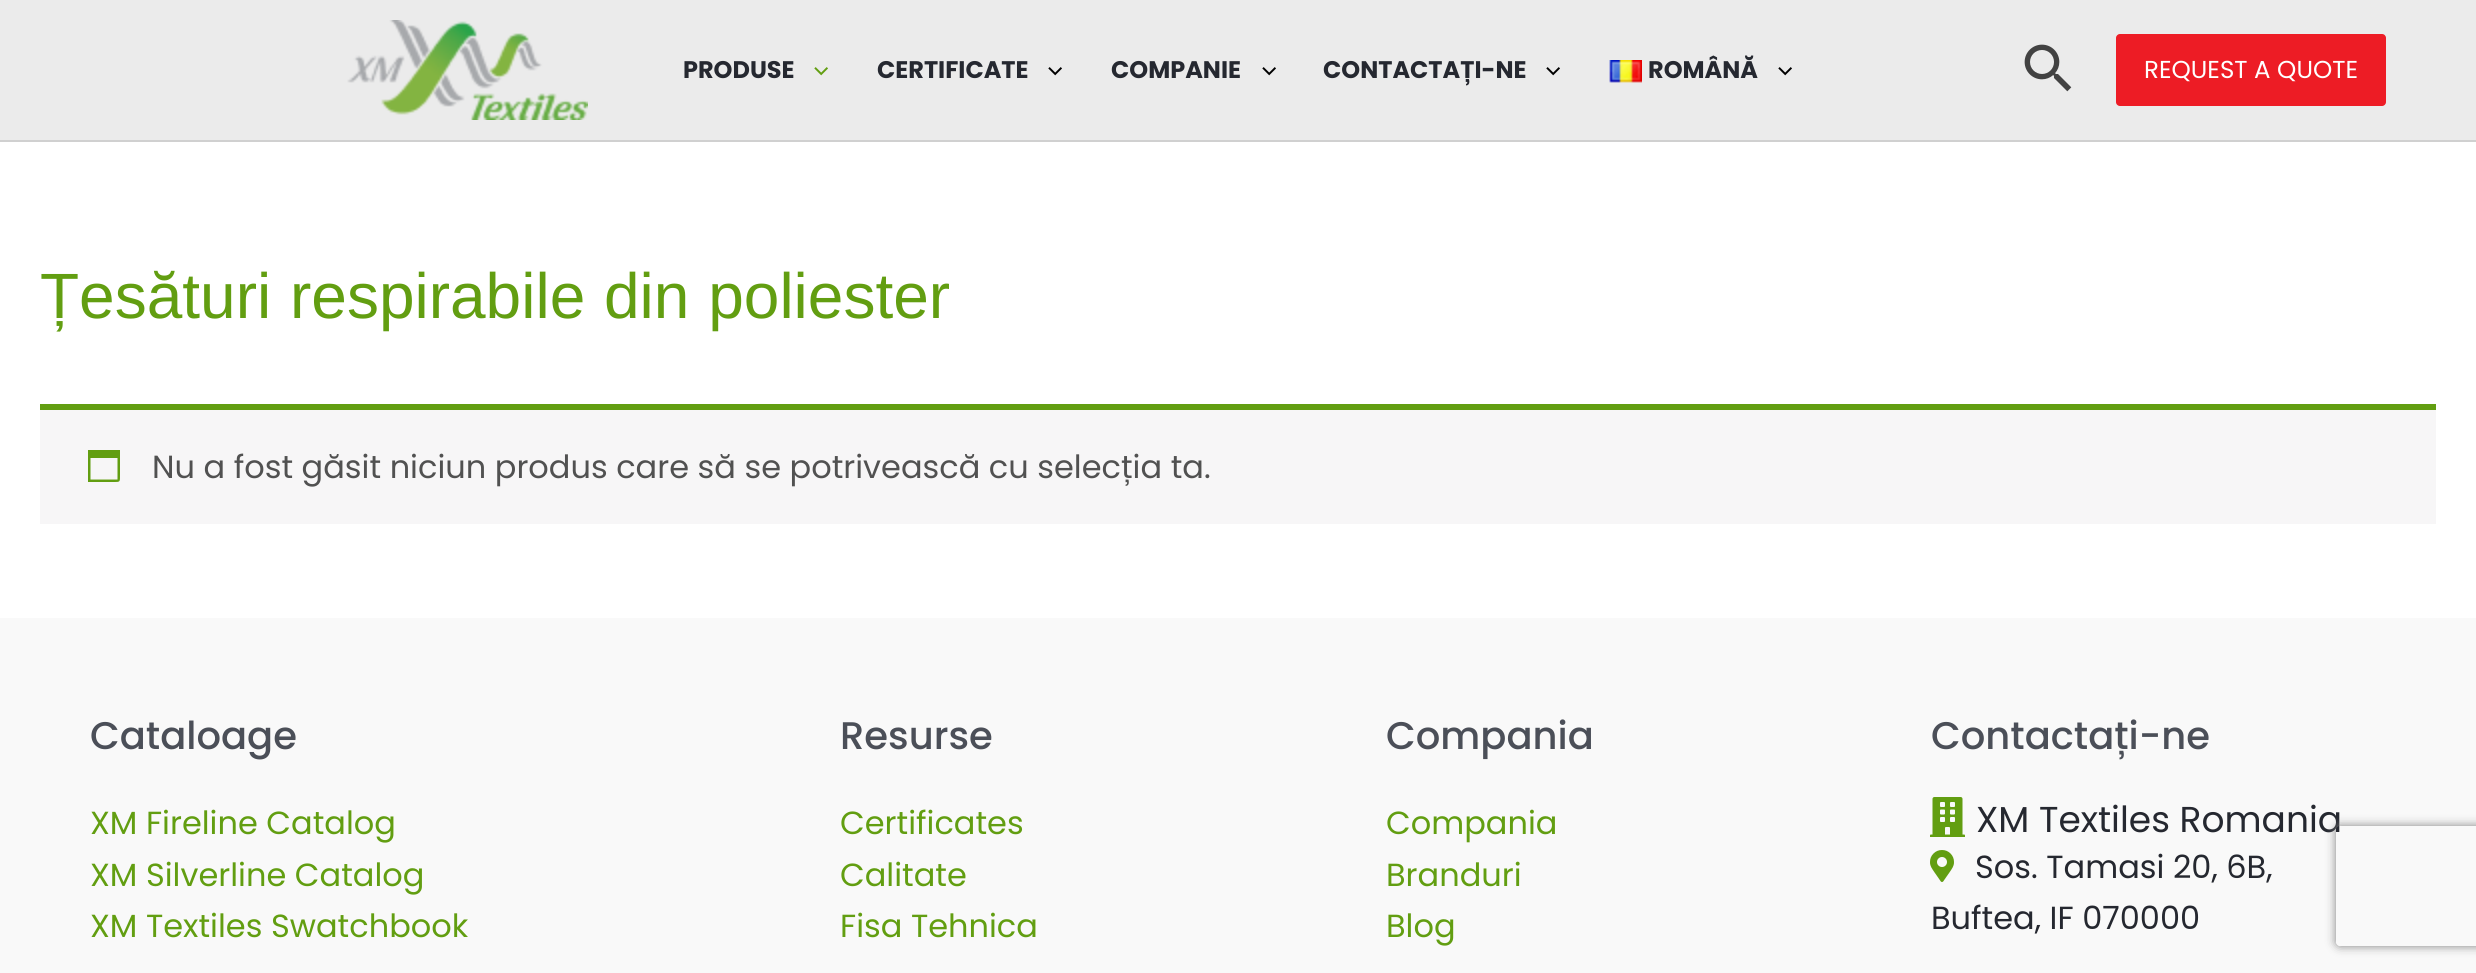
#include <cairo.h>
#include <math.h>
#include <stddef.h>

typedef struct { const char *family; double size; int italic, bold; unsigned color; } style_t;
static cairo_t *ctx;

static void ink(unsigned color) {
    cairo_set_source_rgb(ctx, (color >> 16) / 255.0, (color >> 8 & 255) / 255.0, (color & 255) / 255.0);
}

static void write(double x, double y, const char *s, const style_t *st) {
    cairo_select_font_face(ctx, st->family, st->italic ? CAIRO_FONT_SLANT_ITALIC : CAIRO_FONT_SLANT_NORMAL,
        st->bold ? CAIRO_FONT_WEIGHT_BOLD : CAIRO_FONT_WEIGHT_NORMAL);
    cairo_set_font_size(ctx, st->size);
    ink(st->color);
    cairo_move_to(ctx, x, y);
    cairo_show_text(ctx, s);
}

static void write_spaced(double x, double y, const char *s, double letter, double word) {
    cairo_move_to(ctx, x, y);
    while (*s) {
        char ch[5] = {0};
        int n = 0;
        do ch[n++] = *s++; while ((*s & 0xC0) == 0x80);
        cairo_show_text(ctx, ch);
        cairo_rel_move_to(ctx, letter + word * (*ch == ' '), 0);
    }
}

static void block(double x, double y, double w, double h, unsigned color) {
    ink(color);
    cairo_rectangle(ctx, x, y, w, h);
    cairo_fill(ctx);
}

static void round_path(double x, double y, double w, double h, double r) {
    cairo_new_sub_path(ctx);
    cairo_arc(ctx, x + w - r, y + h - r, r, 0, M_PI / 2);
    cairo_arc(ctx, x + r, y + h - r, r, M_PI / 2, M_PI);
    cairo_arc(ctx, x + r, y + r, r, M_PI, 1.5 * M_PI);
    cairo_arc(ctx, x + w - r, y + r, r, 1.5 * M_PI, 2 * M_PI);
    cairo_close_path(ctx);
}

static void blur_box(double x, double y, double w, double h, double r, double blur, double alpha) {
    cairo_push_group_with_content(ctx, CAIRO_CONTENT_ALPHA);
    cairo_set_operator(ctx, CAIRO_OPERATOR_SOURCE);
    for (int i = 15; i >= -15 && fmin(w, h) + blur * i / 3 > 0; i -= 2) {
        double e = blur * i / 6;
        cairo_set_source_rgba(ctx, 0, 0, 0, alpha * erfc((i - 1) / 8.5) / 2);
        round_path(x - e, y - e, w + 2 * e, h + 2 * e, fmax(0, fmin(r + e + blur * .6, fmin(w, h) / 2 + e)));
        cairo_fill(ctx);
    }
    cairo_pattern_t *soft = cairo_pop_group(ctx);
    cairo_mask(ctx, soft);
    cairo_pattern_destroy(soft);
}

static void paste(const char *path, double x, double y, double w, double h) {
    cairo_surface_t *image = cairo_image_surface_create_from_png(path);
    cairo_save(ctx);
    cairo_set_source_surface(ctx, image, x, y);
    cairo_rectangle(ctx, x, y, w, h);
    cairo_fill(ctx);
    cairo_restore(ctx);
    cairo_surface_destroy(image);
}

static const style_t s1 = {"Poppins", 24, 0, 1, 0x252830};
static const style_t s2 = {"Poppins", 24.5, 0, 0, 0xffffff};
static const style_t s3 = {"Poppins", 32, 0, 0, 0x515151};
static const style_t s4 = {"Poppins Medium", 38.5, 0, 0, 0x4b4f58};
static const style_t s5 = {"Poppins", 32, 0, 0, 0x629e11};
static const style_t s6 = {"Poppins", 36, 0, 0, 0x252830};
static const style_t s7 = {"Poppins", 32, 0, 0, 0x252830};

int main(void) {
    cairo_surface_t *surface = cairo_image_surface_create(CAIRO_FORMAT_RGB24, 2476, 973);
    ctx = cairo_create(surface);
    cairo_font_options_t *options = cairo_font_options_create();
    cairo_font_options_set_hint_metrics(options, CAIRO_HINT_METRICS_OFF);
    cairo_font_options_set_hint_style(options, CAIRO_HINT_STYLE_NONE);
    cairo_set_font_options(ctx, options);
    cairo_set_miter_limit(ctx, 4);
    ink(0xffffff);
    cairo_paint(ctx);
    block(0, 0, 2476, 140, 0xebebeb);
    block(0, 140, 2476, 2, 0xd0d0d0);
    paste("pic1.png", 347, 20, 241, 100);
    write(683, 78, "PRODUSE", &s1);
    paste("pic2.png", 814, 67, 14, 9);
    write(877, 78, "CERTIFICATE", &s1);
    paste("pic3.png", 1048, 67, 14, 9);
    write(1111, 78, "COMPANIE", &s1);
    paste("pic3.png", 1262, 67, 14, 9);
    write(1323, 78, "CONTACTAȚI-NE", &s1);
    paste("pic3.png", 1546, 67, 14, 9);
    paste("pic4.png", 1609, 60, 33, 23);
    write(1648, 78, "ROMÂNĂ", &s1);
    paste("pic3.png", 1778, 67, 14, 9);
    paste("pic5.png", 2024, 44, 48, 48);
    ink(0xed1c25);
    round_path(2116, 34, 270, 72, 4);
    cairo_fill(ctx);
    write(2144, 78, "REQUEST A QUOTE", &s2);
    cairo_select_font_face(ctx, "Liberation Sans", CAIRO_FONT_SLANT_NORMAL, CAIRO_FONT_WEIGHT_NORMAL);
    cairo_set_font_size(ctx, 64);
    ink(0x629e11);
    write_spaced(40, 318, "Țesături respirabile din poliester", 0, 1);
    block(40, 410, 2396, 114, 0xf7f6f7);
    block(40, 404, 2396, 6, 0x629e11);
    cairo_new_path(ctx);
    cairo_move_to(ctx, 117.5, 458);
    cairo_line_to(ctx, 90.5, 458);
    cairo_line_to(ctx, 90.5, 479.5);
    cairo_line_to(ctx, 117.5, 479.5);
    cairo_close_path(ctx);
    cairo_move_to(ctx, 120, 450);
    cairo_line_to(ctx, 120, 474.5);
    cairo_curve_to(ctx, 120, 482.5, 120.5, 482, 112.5, 482);
    cairo_line_to(ctx, 88, 482);
    cairo_line_to(ctx, 88, 450);
    cairo_close_path(ctx);
    cairo_fill(ctx);
    write(152, 478, "Nu a fost găsit niciun produs care să se potrivească cu selecția ta.", &s3);
    block(0, 618, 2476, 355, 0xf9f9f9);
    write(90, 749, "Cataloage", &s4);
    write(90, 834, "XM Fireline Catalog", &s5);
    write(90, 886, "XM Silverline Catalog", &s5);
    write(90, 937, "XM Textiles Swatchbook", &s5);
    write(840, 749, "Resurse", &s4);
    write(840, 834, "Certificates", &s5);
    write(840, 886, "Calitate", &s5);
    write(840, 937, "Fisa Tehnica", &s5);
    write(1386, 749, "Compania", &s4);
    write(1386, 834, "Compania", &s5);
    write(1386, 886, "Branduri", &s5);
    write(1386, 937, "Blog", &s5);
    write(1931, 749, "Contactați-ne", &s4);
    paste("pic6.png", 1930, 797, 35, 40);
    write(1976, 832, "XM Textiles Romania", &s6);
    paste("pic7.png", 1930, 850, 24, 32);
    write(1975, 878, "Sos. Tamasi 20, 6B,", &s7);
    write(1931, 929, "Buftea, IF 070000", &s7);
    cairo_save(ctx);
    cairo_set_fill_rule(ctx, CAIRO_FILL_RULE_EVEN_ODD);
    cairo_new_path(ctx);
    cairo_move_to(ctx, 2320, 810);
    cairo_line_to(ctx, 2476, 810);
    cairo_line_to(ctx, 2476, 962);
    cairo_line_to(ctx, 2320, 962);
    cairo_close_path(ctx);
    cairo_move_to(ctx, 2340, 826);
    cairo_line_to(ctx, 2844, 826);
    cairo_curve_to(ctx, 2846, 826, 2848, 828, 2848, 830);
    cairo_line_to(ctx, 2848, 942);
    cairo_curve_to(ctx, 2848, 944, 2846, 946, 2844, 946);
    cairo_line_to(ctx, 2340, 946);
    cairo_curve_to(ctx, 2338, 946, 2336, 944, 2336, 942);
    cairo_line_to(ctx, 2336, 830);
    cairo_curve_to(ctx, 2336, 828, 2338, 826, 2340, 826);
    cairo_close_path(ctx);
    cairo_clip(ctx);
    ink(0x808080);
    blur_box(2336, 826, 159, 120, 4, 5, 1);
    cairo_restore(ctx);
    cairo_surface_write_to_png(surface, "screenshot.png");
    cairo_font_options_destroy(options);
    cairo_destroy(ctx);
    cairo_surface_destroy(surface);
    return 0;
}
